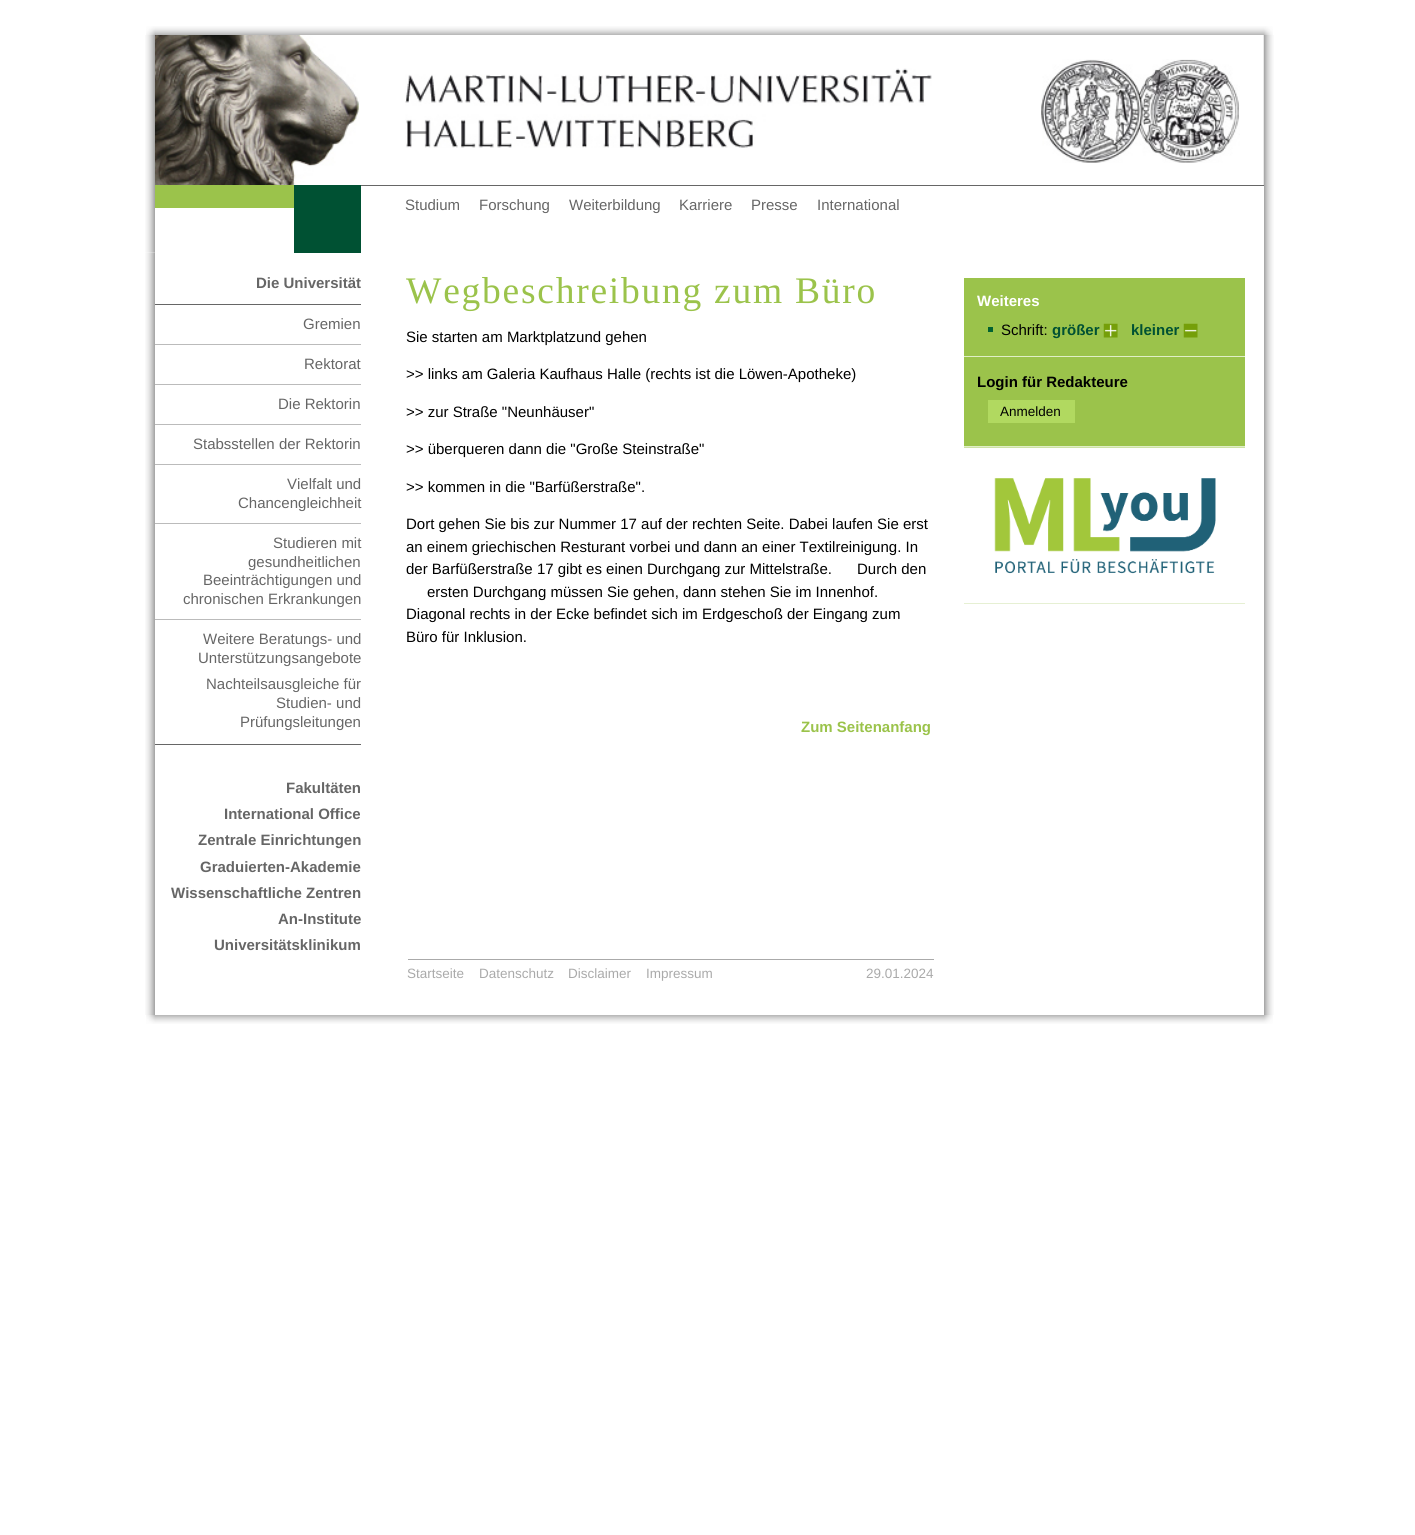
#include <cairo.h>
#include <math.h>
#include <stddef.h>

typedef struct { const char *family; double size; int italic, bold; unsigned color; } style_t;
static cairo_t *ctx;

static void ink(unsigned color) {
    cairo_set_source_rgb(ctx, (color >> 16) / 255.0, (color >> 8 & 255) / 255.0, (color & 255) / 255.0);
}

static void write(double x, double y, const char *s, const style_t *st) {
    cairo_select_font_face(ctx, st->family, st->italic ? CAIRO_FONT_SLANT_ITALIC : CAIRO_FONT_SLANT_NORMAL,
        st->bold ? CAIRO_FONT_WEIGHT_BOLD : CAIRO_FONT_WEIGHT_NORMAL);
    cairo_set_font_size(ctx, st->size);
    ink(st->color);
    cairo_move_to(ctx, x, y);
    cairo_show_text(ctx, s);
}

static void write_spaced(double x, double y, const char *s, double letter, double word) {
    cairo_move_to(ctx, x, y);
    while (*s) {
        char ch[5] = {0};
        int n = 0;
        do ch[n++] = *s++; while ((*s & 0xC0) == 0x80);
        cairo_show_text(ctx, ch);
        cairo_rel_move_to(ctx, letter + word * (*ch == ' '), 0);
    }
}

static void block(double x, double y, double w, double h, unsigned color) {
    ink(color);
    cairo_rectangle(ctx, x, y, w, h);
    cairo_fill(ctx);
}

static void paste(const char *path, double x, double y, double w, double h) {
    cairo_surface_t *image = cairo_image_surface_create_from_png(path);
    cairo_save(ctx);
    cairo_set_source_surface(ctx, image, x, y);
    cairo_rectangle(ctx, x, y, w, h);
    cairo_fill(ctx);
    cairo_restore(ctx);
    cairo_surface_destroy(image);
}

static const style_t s1 = {"Liberation Sans", 15, 0, 0, 0x666666};
static const style_t s2 = {"Liberation Sans", 15, 0, 1, 0x666666};
static const style_t s3 = {"Liberation Sans", 15, 0, 0, 0x000000};
static const style_t s4 = {"Liberation Sans", 15, 0, 1, 0x9bc34b};
static const style_t s5 = {"Liberation Sans", 13.5, 0, 0, 0xaaaaaa};
static const style_t s6 = {"Liberation Sans", 15, 0, 1, 0xffffff};
static const style_t s7 = {"Liberation Sans", 15, 0, 1, 0x005133};
static const style_t s8 = {"Liberation Sans", 15, 0, 1, 0x000000};
static const style_t s9 = {"Liberation Sans", 13.5, 0, 0, 0x000000};

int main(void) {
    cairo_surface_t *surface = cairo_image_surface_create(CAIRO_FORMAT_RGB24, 1415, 1535);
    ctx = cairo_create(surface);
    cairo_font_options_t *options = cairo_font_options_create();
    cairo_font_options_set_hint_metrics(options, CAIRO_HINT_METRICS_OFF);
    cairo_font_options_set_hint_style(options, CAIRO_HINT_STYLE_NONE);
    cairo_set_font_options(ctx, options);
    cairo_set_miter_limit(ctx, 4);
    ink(0xffffff);
    cairo_paint(ctx);
    paste("pic1.png", 1065, 26, 208, 9);
    paste("pic2.png", 146, 26, 9, 9);
    paste("pic3.png", 155, 26, 910, 9);
    paste("pic4.png", 1263, 35, 11, 980);
    paste("pic5.png", 145, 35, 10, 150);
    paste("pic6.png", 155, 35, 205, 150);
    paste("pic7.png", 405, 68, 527, 80);
    paste("pic8.png", 1041, 59, 199, 104);
    block(1263, 185, 1, 830, 0xffffff);
    paste("pic9.png", 145, 185, 10, 68);
    block(155, 185, 139, 23, 0x9bc34b);
    block(294, 185, 67, 68, 0x005133);
    block(361, 185, 903, 1, 0x666666);
    write(405, 210, "Studium", &s1);
    write(479, 210, "Forschung", &s1);
    write(569, 210, "Weiterbildung", &s1);
    write(679, 210, "Karriere", &s1);
    write(751, 210, "Presse", &s1);
    write(817, 210, "International", &s1);
    paste("pic10.png", 145, 252, 10, 763);
    write(256, 288, "Die Universität", &s2);
    block(155, 304, 206, 1, 0x666666);
    block(155, 744, 206, 1, 0x666666);
    write(303, 329, "Gremien", &s1);
    block(155, 344, 206, 1, 0xbbbbbb);
    write(304, 369, "Rektorat", &s1);
    block(155, 384, 206, 1, 0xbbbbbb);
    write(278, 409, "Die Rektorin", &s1);
    block(155, 424, 206, 1, 0xbbbbbb);
    write(193, 449, "Stabsstellen der Rektorin", &s1);
    block(155, 464, 206, 1, 0xbbbbbb);
    write(287, 489, "Vielfalt und", &s1);
    write(238, 508, "Chancengleichheit", &s1);
    block(155, 523, 206, 1, 0xbbbbbb);
    write(273, 548, "Studieren mit", &s1);
    write(248, 567, "gesundheitlichen", &s1);
    write(203, 585, "Beeinträchtigungen und", &s1);
    write(183, 604, "chronischen Erkrankungen", &s1);
    block(155, 619, 206, 1, 0xbbbbbb);
    write(203, 644, "Weitere Beratungs- und", &s1);
    write(198, 663, "Unterstützungsangebote", &s1);
    write(206, 689, "Nachteilsausgleiche für", &s1);
    write(276, 708, "Studien- und", &s1);
    write(240, 727, "Prüfungsleitungen", &s1);
    write(286, 793, "Fakultäten", &s2);
    write(224, 819, "International Office", &s2);
    write(198, 845, "Zentrale Einrichtungen", &s2);
    write(200, 872, "Graduierten-Akademie", &s2);
    write(171, 898, "Wissenschaftliche Zentren", &s2);
    write(278, 924, "An-Institute", &s2);
    write(214, 950, "Universitätsklinikum", &s2);
    cairo_select_font_face(ctx, "Liberation Serif", CAIRO_FONT_SLANT_NORMAL, CAIRO_FONT_WEIGHT_NORMAL);
    cairo_set_font_size(ctx, 37.5);
    ink(0x9bc34b);
    write_spaced(406, 303, "Wegbeschreibung zum Büro", 1.75, 0);
    write(406, 342, "Sie starten am Marktplatzund gehen", &s3);
    write(406, 379, ">> links am Galeria Kaufhaus Halle (rechts ist die Löwen-Apotheke)", &s3);
    write(406, 417, ">> zur Straße \"Neunhäuser\"", &s3);
    write(406, 454, ">> überqueren dann die \"Große Steinstraße\"", &s3);
    write(406, 492, ">> kommen in die \"Barfüßerstraße\".", &s3);
    write(406, 529, "Dort gehen Sie bis zur Nummer 17 auf der rechten Seite. Dabei laufen Sie erst", &s3);
    write(406, 552, "an einem griechischen Resturant vorbei und dann an einer Textilreinigung. In", &s3);
    write(406, 574, "der Barfüßerstraße 17 gibt es einen Durchgang zur Mittelstraße.      Durch den", &s3);
    write(427, 597, "ersten Durchgang müssen Sie gehen, dann stehen Sie im Innenhof.", &s3);
    write(406, 619, "Diagonal rechts in der Ecke befindet sich im Erdgeschoß der Eingang zum", &s3);
    write(406, 642, "Büro für Inklusion.", &s3);
    write(801, 732, "Zum Seitenanfang", &s4);
    block(408, 959, 526, 1, 0xaaaaaa);
    write(407, 978, "Startseite", &s5);
    write(479, 978, "Datenschutz", &s5);
    write(568, 978, "Disclaimer", &s5);
    write(646, 978, "Impressum", &s5);
    write(866, 978, "29.01.2024", &s5);
    block(964, 278, 281, 326, 0x9bc34b);
    block(964, 356, 281, 1, 0xe0efc6);
    write(977, 306, "Weiteres", &s6);
    block(988, 327, 5, 5, 0x026231);
    write(1001, 335, "Schrift:", &s3);
    write(1052, 335, "größer", &s7);
    paste("pic11.png", 1103, 323, 15, 15);
    write(1131, 335, "kleiner", &s7);
    paste("pic12.png", 1183, 323, 15, 15);
    block(964, 446, 281, 1, 0xe0efc6);
    write(977, 387, "Login für Redakteure", &s8);
    block(988, 400, 87, 23, 0xb1d960);
    write(1000, 416, "Anmelden", &s9);
    paste("pic13.png", 964, 447, 281, 157);
    paste("pic14.png", 1065, 1015, 208, 9);
    paste("pic15.png", 146, 1015, 9, 9);
    paste("pic16.png", 155, 1015, 910, 9);
    cairo_surface_write_to_png(surface, "screenshot.png");
    cairo_font_options_destroy(options);
    cairo_destroy(ctx);
    cairo_surface_destroy(surface);
    return 0;
}
